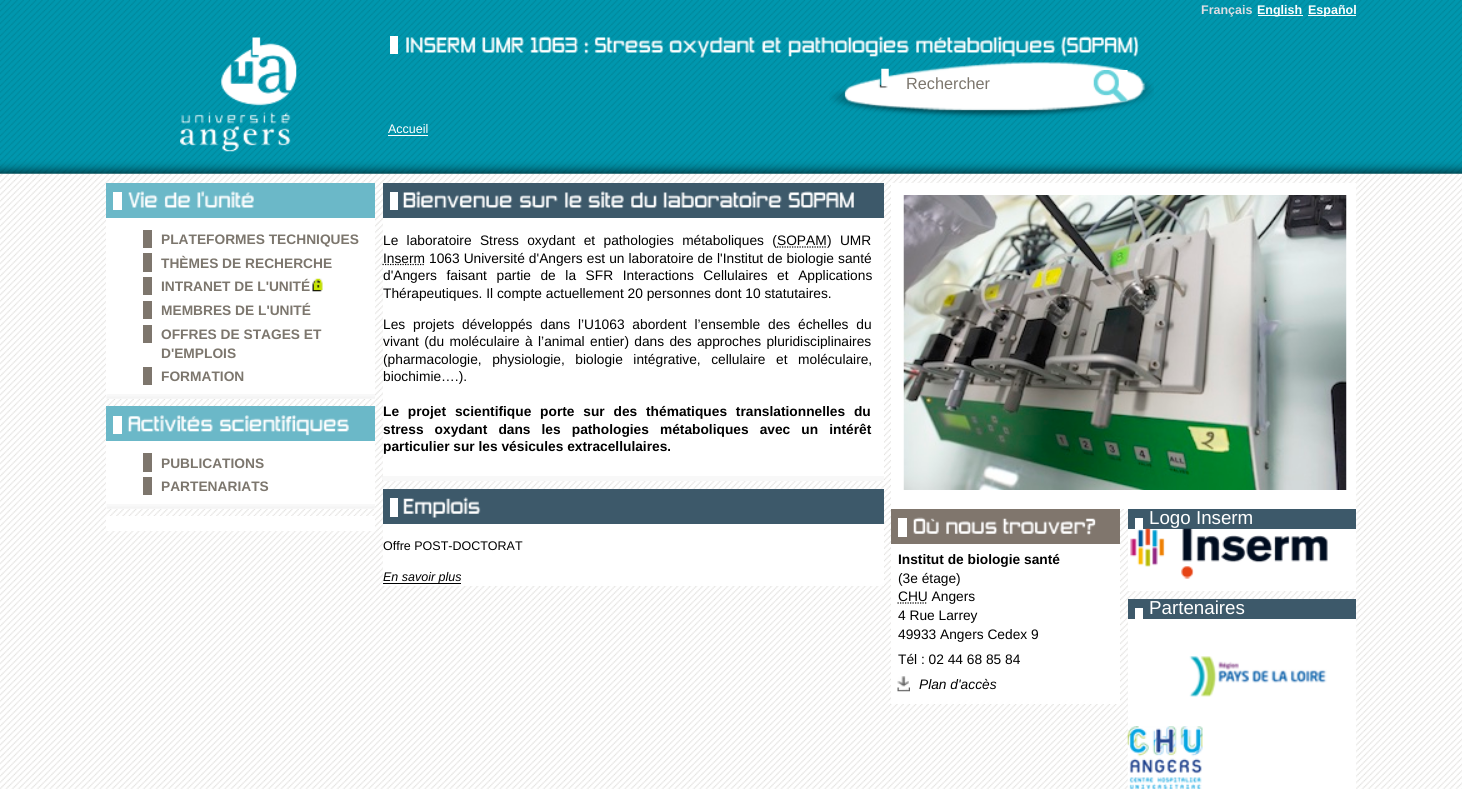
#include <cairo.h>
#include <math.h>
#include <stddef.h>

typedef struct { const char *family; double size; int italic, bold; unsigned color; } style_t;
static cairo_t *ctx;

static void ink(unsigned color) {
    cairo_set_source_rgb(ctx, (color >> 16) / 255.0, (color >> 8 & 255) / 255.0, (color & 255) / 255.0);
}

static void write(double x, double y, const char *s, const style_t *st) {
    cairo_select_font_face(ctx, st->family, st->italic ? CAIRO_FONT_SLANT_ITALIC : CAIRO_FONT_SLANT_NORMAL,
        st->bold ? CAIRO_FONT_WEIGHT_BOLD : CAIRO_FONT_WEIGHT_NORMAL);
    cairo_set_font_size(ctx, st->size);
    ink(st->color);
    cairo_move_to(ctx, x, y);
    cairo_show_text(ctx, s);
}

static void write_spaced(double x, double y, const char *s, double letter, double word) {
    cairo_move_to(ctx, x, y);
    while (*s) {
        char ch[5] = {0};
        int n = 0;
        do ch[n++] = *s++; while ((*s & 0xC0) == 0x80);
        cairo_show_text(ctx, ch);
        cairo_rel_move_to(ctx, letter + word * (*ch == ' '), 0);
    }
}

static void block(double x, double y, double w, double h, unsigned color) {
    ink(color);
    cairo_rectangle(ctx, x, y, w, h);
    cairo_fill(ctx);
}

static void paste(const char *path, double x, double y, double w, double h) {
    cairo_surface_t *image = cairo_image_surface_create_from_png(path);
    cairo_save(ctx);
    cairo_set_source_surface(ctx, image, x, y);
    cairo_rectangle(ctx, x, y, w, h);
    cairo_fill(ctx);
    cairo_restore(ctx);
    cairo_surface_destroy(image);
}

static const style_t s1 = {"Liberation Sans", 12.5, 0, 1, 0xdcdde3};
static const style_t s2 = {"Liberation Sans", 12.5, 0, 1, 0xffffff};
static const style_t s3 = {"Liberation Sans", 16.25, 0, 0, 0x7c766d};
static const style_t s4 = {"Liberation Sans", 12.5, 0, 0, 0xffffff};
static const style_t s5 = {"Liberation Sans", 13.75, 0, 1, 0x7c766d};
static const style_t s6 = {"Liberation Sans", 13.75, 0, 0, 0x000000};
static const style_t s7 = {"Liberation Sans", 13.75, 0, 1, 0x000000};
static const style_t s8 = {"Liberation Sans", 12.5, 0, 0, 0x000000};
static const style_t s9 = {"Liberation Sans", 12.5, 1, 0, 0x000000};
static const style_t s10 = {"Liberation Sans", 13.75, 1, 0, 0x000000};
static const style_t s11 = {"Liberation Sans", 18.75, 0, 0, 0xffffff};

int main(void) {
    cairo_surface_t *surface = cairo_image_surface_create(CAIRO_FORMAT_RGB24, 1462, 789);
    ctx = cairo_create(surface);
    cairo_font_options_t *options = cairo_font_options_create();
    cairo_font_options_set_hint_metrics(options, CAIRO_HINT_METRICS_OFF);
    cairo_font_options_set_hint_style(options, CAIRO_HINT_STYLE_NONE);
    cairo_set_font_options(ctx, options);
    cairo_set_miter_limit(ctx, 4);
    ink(0xffffff);
    cairo_paint(ctx);
    paste("pic1.png", 0, 173, 1462, 616);
    paste("pic2.png", 0, 0, 1462, 174);
    write(1201, 14, "Français", &s1);
    block(1258, 15, 45, 1, 0xffffff);
    write(1257, 14, "English", &s2);
    block(1308, 15, 48, 1, 0xffffff);
    write(1308, 14, "Español", &s2);
    paste("pic3.png", 180, 37, 117, 115);
    block(390, 36, 8, 18, 0xffffff);
    paste("pic4.png", 406, 37, 70, 16);
    paste("pic5.png", 482, 37, 42, 16);
    paste("pic6.png", 530, 36, 48, 17);
    paste("pic7.png", 583, 42, 6, 12);
    paste("pic8.png", 594, 37, 70, 16);
    paste("pic9.png", 668, 37, 88, 21);
    paste("pic10.png", 761, 37, 21, 16);
    paste("pic11.png", 788, 36, 121, 21);
    paste("pic12.png", 916, 36, 140, 21);
    paste("pic13.png", 1061, 36, 78, 21);
    paste("pic14.png", 829, 62, 325, 56);
    write(906, 89, "Rechercher", &s3);
    paste("pic15.png", 1093, 70, 35, 32);
    write(388, 133, "Accueil", &s4);
    block(388, 135, 40, 1, 0xffffff);
    block(106, 218, 269, 181, 0xffffff);
    paste("pic16.png", 106, 394, 269, 5);
    block(106, 183, 269, 35, 0x6bb8c8);
    block(113, 192, 9, 18, 0xffffff);
    paste("pic17.png", 128, 191, 30, 17);
    paste("pic18.png", 164, 192, 27, 16);
    paste("pic19.png", 197, 191, 57, 17);
    block(143, 230, 9, 18, 0x7e766d);
    write(161, 244, "PLATEFORMES TECHNIQUES", &s5);
    block(143, 253, 9, 19, 0x7e766d);
    write(161, 268, "THÈMES DE RECHERCHE", &s5);
    block(143, 277, 9, 18, 0x7e766d);
    write(161, 291, "INTRANET DE L'UNITÉ", &s5);
    paste("pic20.png", 312, 278, 11, 14);
    block(143, 301, 9, 18, 0x7e766d);
    write(161, 315, "MEMBRES DE L'UNITÉ", &s5);
    block(143, 325, 9, 18, 0x7e766d);
    write(161, 339, "OFFRES DE STAGES ET", &s5);
    write(161, 358, "D'EMPLOIS", &s5);
    block(143, 367, 9, 18, 0x7e766d);
    write(161, 381, "FORMATION", &s5);
    block(106, 441, 269, 68, 0xffffff);
    paste("pic16.png", 106, 504, 269, 5);
    block(106, 406, 269, 35, 0x6bb8c8);
    block(113, 416, 9, 18, 0xffffff);
    paste("pic21.png", 127, 415, 86, 17);
    paste("pic22.png", 219, 415, 130, 21);
    block(143, 453, 9, 19, 0x7e766d);
    write(161, 468, "PUBLICATIONS", &s5);
    block(143, 477, 9, 18, 0x7e766d);
    write(161, 491, "PARTENARIATS", &s5);
    block(106, 516, 269, 15, 0xffffff);
    block(383, 218, 501, 263, 0xffffff);
    cairo_set_source_rgba(ctx, 0, 0, 0, 0.03);
    cairo_rectangle(ctx, 382, 476, 502, 5);
    cairo_fill(ctx);
    block(383, 183, 501, 35, 0x3d596a);
    block(390, 192, 8, 18, 0xffffff);
    paste("pic23.png", 402, 191, 111, 17);
    paste("pic24.png", 519, 195, 39, 13);
    paste("pic25.png", 564, 192, 18, 16);
    paste("pic26.png", 588, 191, 36, 17);
    paste("pic27.png", 631, 192, 26, 16);
    paste("pic28.png", 663, 191, 119, 17);
    paste("pic29.png", 788, 191, 66, 17);
    cairo_select_font_face(ctx, "Liberation Sans", CAIRO_FONT_SLANT_NORMAL, CAIRO_FONT_WEIGHT_NORMAL);
    ink(0x000000);
    write_spaced(383, 245, "Le laboratoire Stress oxydant et pathologies métaboliques (", 0, 4.5);
    write(777, 245, "SOPAM", &s6);
    cairo_new_path(ctx);
    cairo_move_to(ctx, 777, 247);
    cairo_line_to(ctx, 827, 247);
    cairo_set_line_width(ctx, 1.2);
    cairo_set_dash(ctx, (double[]){1.25, 1.25}, 2, 0);
    cairo_stroke(ctx);
    write_spaced(827, 245, ") UMR", 0, 4.5);
    cairo_new_path(ctx);
    cairo_move_to(ctx, 382.5, 264.5);
    cairo_line_to(ctx, 424.5, 264.5);
    cairo_stroke(ctx);
    write(383, 263, "Inserm", &s6);
    write_spaced(429, 263, "1063 Université d'Angers est un laboratoire de l'Institut de biologie santé", 0, 0.25);
    write_spaced(383, 280, "d'Angers faisant partie de la SFR Interactions Cellulaires et Applications", 0, 5.75);
    write(383, 298, "Thérapeutiques. Il compte actuellement 20 personnes dont 10 statutaires.", &s6);
    write_spaced(383, 329, "Les projets développés dans l’U1063 abordent l’ensemble des échelles du", 0, 4);
    write_spaced(383, 346, "vivant (du moléculaire à l’animal entier) dans des approches pluridisciplinaires", 0, 1.5);
    write_spaced(383, 364, "(pharmacologie, physiologie, biologie intégrative, cellulaire et moléculaire,", 0, 6.75);
    write(383, 381, "biochimie….).", &s6);
    cairo_select_font_face(ctx, "Liberation Sans", CAIRO_FONT_SLANT_NORMAL, CAIRO_FONT_WEIGHT_BOLD);
    write_spaced(383, 416, "Le projet scientifique porte sur des thématiques translationnelles du", 0, 5);
    write_spaced(383, 434, "stress oxydant dans les pathologies métaboliques avec un intérêt", 0, 7.25);
    write(383, 451, "particulier sur les vésicules extracellulaires.", &s7);
    block(383, 524, 501, 62, 0xffffff);
    block(383, 489, 501, 35, 0x3d596a);
    block(390, 498, 8, 19, 0xffffff);
    paste("pic30.png", 403, 497, 78, 21);
    write(383, 550, "Offre POST-DOCTORAT", &s8);
    block(383, 583, 78, 1, 0x000000);
    write(383, 581, "En savoir plus", &s9);
    block(891, 183, 465, 326, 0xffffff);
    paste("pic31.png", 903, 195, 444, 295);
    block(891, 544, 229, 160, 0xffffff);
    block(891, 509, 229, 35, 0x80766d);
    block(898, 518, 9, 19, 0xffffff);
    paste("pic32.png", 913, 517, 26, 17);
    paste("pic33.png", 946, 521, 52, 13);
    paste("pic34.png", 1002, 518, 94, 17);
    write(898, 564, "Institut de biologie santé", &s7);
    write(898, 583, "(3e étage)", &s6);
    cairo_new_path(ctx);
    cairo_move_to(ctx, 897.5, 603);
    cairo_line_to(ctx, 927.5, 603);
    cairo_stroke(ctx);
    write(898, 601, "CHU Angers", &s6);
    write(898, 620, "4 Rue Larrey", &s6);
    write(898, 639, "49933 Angers Cedex 9", &s6);
    write(898, 664, "Tél : 02 44 68 85 84", &s6);
    paste("pic35.png", 897, 676, 13, 16);
    write(919, 689, "Plan d'accès", &s10);
    block(1128, 529, 228, 62, 0xffffff);
    block(1128, 509, 228, 20, 0x3d596a);
    block(1135, 518, 8, 11, 0xffffff);
    write(1149, 524, "Logo Inserm", &s11);
    paste("pic36.png", 1130, 528, 198, 51);
    block(1128, 619, 228, 170, 0xffffff);
    block(1128, 599, 228, 20, 0x3d596a);
    block(1135, 608, 8, 11, 0xffffff);
    write(1149, 614, "Partenaires", &s11);
    paste("pic37.png", 1189, 656, 138, 41);
    paste("pic38.png", 1127, 726, 76, 63);
    cairo_surface_write_to_png(surface, "screenshot.png");
    cairo_font_options_destroy(options);
    cairo_destroy(ctx);
    cairo_surface_destroy(surface);
    return 0;
}
